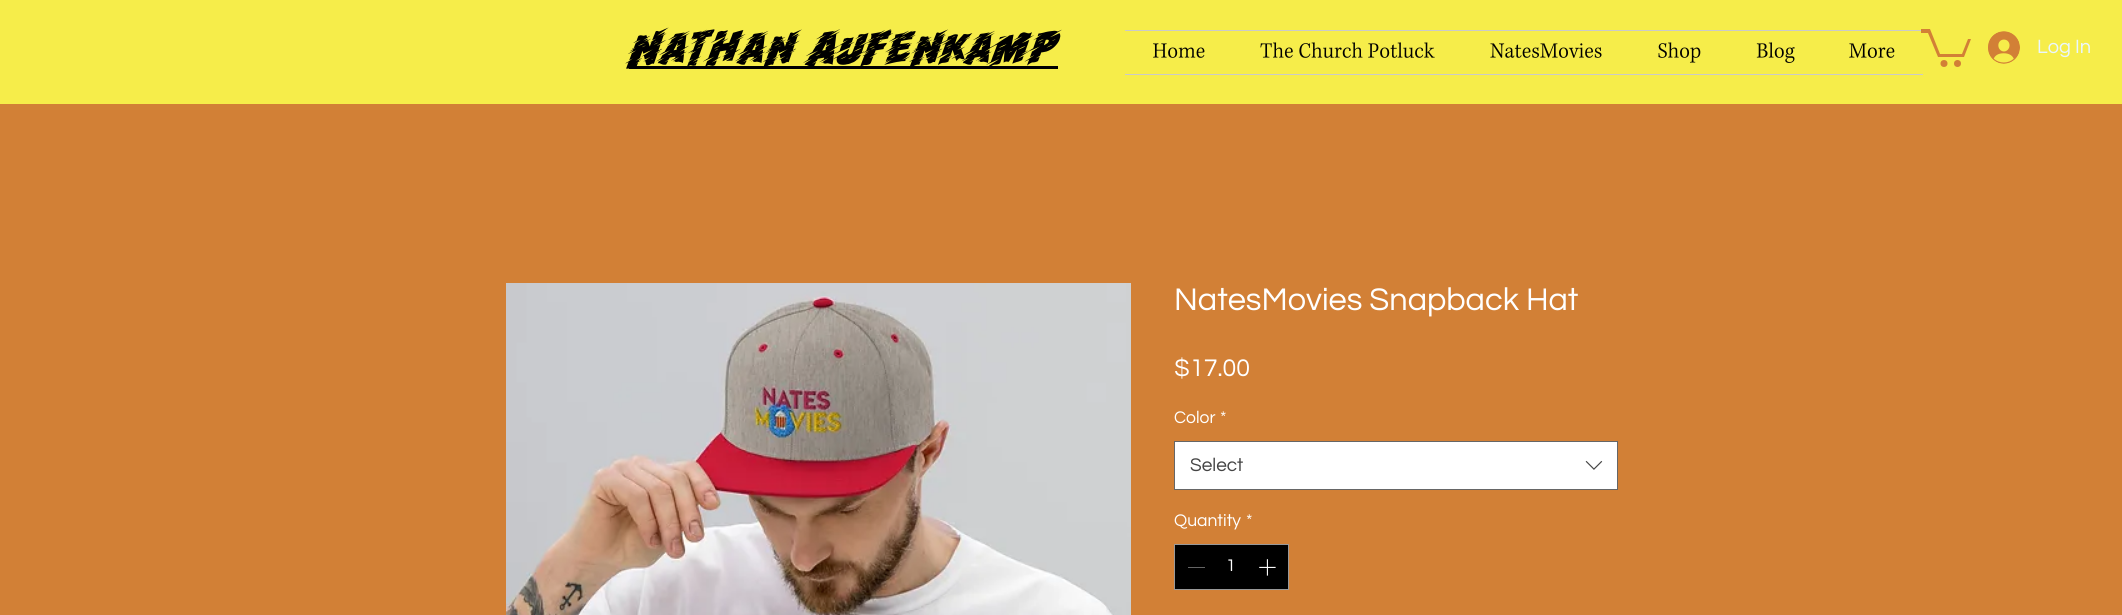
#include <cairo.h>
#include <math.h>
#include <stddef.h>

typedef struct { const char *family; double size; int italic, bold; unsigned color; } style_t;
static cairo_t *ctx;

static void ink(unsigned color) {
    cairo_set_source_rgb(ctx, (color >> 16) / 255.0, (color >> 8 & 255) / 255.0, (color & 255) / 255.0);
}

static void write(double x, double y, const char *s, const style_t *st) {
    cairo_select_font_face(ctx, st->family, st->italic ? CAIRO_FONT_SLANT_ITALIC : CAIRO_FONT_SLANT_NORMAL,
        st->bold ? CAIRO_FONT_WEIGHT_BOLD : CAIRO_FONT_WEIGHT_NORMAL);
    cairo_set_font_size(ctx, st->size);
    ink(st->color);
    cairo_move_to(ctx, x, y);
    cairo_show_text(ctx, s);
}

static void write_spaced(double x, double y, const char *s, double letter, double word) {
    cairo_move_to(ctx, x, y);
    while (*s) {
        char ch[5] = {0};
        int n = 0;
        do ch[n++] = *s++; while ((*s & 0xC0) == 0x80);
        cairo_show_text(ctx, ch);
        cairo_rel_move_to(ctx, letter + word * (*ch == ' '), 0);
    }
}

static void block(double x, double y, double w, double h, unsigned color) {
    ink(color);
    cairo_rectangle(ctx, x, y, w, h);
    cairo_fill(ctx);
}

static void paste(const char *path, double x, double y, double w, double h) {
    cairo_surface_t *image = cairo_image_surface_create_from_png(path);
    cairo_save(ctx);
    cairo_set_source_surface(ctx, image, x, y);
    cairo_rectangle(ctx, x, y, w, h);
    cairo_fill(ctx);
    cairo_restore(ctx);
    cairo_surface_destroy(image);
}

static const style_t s1 = {"Questrial", 20, 0, 0, 0xe9f6ff};
static const style_t s2 = {"Questrial", 32.5, 0, 0, 0xffffff};
static const style_t s3 = {"Questrial", 25, 0, 0, 0xffffff};
static const style_t s4 = {"Questrial", 17.5, 0, 0, 0xffffff};
static const style_t s5 = {"Questrial", 19, 0, 0, 0x444444};

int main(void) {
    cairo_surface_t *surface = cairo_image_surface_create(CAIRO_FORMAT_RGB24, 2122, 615);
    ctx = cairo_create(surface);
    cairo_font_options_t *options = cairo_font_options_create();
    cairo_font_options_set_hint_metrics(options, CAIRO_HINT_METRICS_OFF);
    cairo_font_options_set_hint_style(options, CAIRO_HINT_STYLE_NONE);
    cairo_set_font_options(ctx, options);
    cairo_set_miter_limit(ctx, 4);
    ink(0xd28036);
    cairo_paint(ctx);
    block(0, 0, 2122, 104, 0xf6ed4a);
    block(629, 66, 429, 3, 0x000000);
    cairo_select_font_face(ctx, "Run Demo", CAIRO_FONT_SLANT_NORMAL, CAIRO_FONT_WEIGHT_NORMAL);
    cairo_set_font_size(ctx, 32.5);
    write_spaced(629, 64, "Nathan Aufenkamp", 0.3, 0);
    block(1125, 30, 798, 1, 0xcacaca);
    block(1125, 74, 798, 1, 0xcacaca);
    paste("pic1.png", 1153, 43, 52, 15);
    paste("pic2.png", 1260, 42, 175, 16);
    paste("pic3.png", 1490, 43, 112, 15);
    paste("pic4.png", 1658, 42, 43, 21);
    paste("pic5.png", 1756, 42, 39, 21);
    paste("pic6.png", 1849, 43, 46, 15);
    ink(0xd28036);
    cairo_new_path(ctx);
    cairo_move_to(ctx, 1971, 39);
    cairo_line_to(ctx, 1964, 57);
    cairo_line_to(ctx, 1938, 57);
    cairo_line_to(ctx, 1928, 33);
    cairo_line_to(ctx, 1921, 33);
    cairo_line_to(ctx, 1921, 29);
    cairo_line_to(ctx, 1930, 29);
    cairo_line_to(ctx, 1940, 54);
    cairo_line_to(ctx, 1962, 54);
    cairo_line_to(ctx, 1968, 39);
    cairo_fill(ctx);
    cairo_arc(ctx, 1957.5, 63.5, 3.5, 0, 2 * M_PI);
    cairo_fill(ctx);
    cairo_arc(ctx, 1944, 63.5, 3.5, 0, 2 * M_PI);
    cairo_fill(ctx);
    paste("pic7.png", 1988, 31, 32, 33);
    write(2037, 53, "Log In", &s1);
    paste("pic8.png", 506, 283, 625, 332);
    write(1174, 310, "NatesMovies Snapback Hat", &s2);
    write(1174, 376, "$17.00", &s3);
    write(1174, 423, "Color", &s4);
    write(1220, 423, "*", &s4);
    cairo_rectangle(ctx, 1174.5, 441.5, 443, 48);
    cairo_fill_preserve(ctx);
    ink(0x666666);
    cairo_set_line_width(ctx, 1);
    cairo_stroke(ctx);
    write(1190, 471, "Select", &s5);
    paste("pic9.png", 1585, 460, 18, 10);
    write(1174, 526, "Quantity", &s4);
    write(1246, 526, "*", &s4);
    ink(0x000000);
    cairo_rectangle(ctx, 1174.5, 544.5, 114, 45);
    cairo_fill_preserve(ctx);
    ink(0x999999);
    cairo_stroke(ctx);
    block(1188, 567, 17, 1, 0x646464);
    write(1226, 571, "1", &s4);
    paste("pic10.png", 1259, 559, 17, 17);
    cairo_surface_write_to_png(surface, "screenshot.png");
    cairo_font_options_destroy(options);
    cairo_destroy(ctx);
    cairo_surface_destroy(surface);
    return 0;
}
